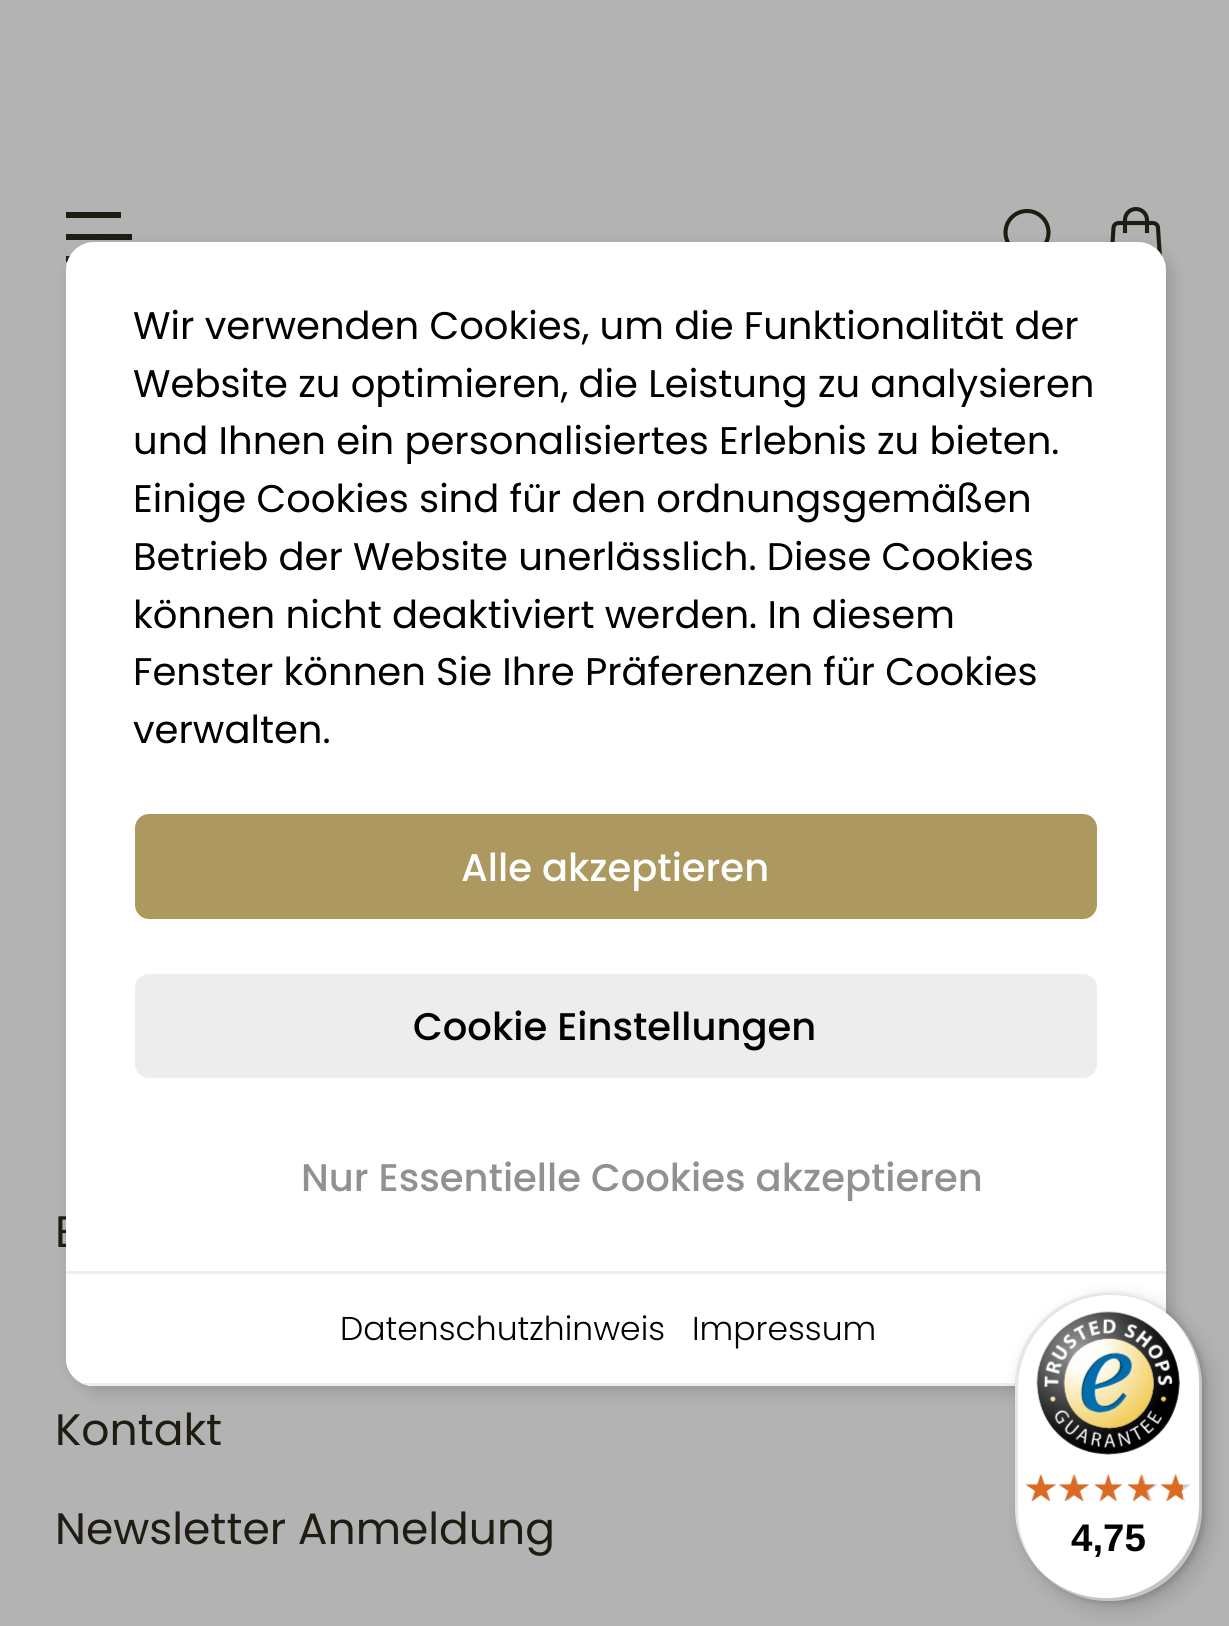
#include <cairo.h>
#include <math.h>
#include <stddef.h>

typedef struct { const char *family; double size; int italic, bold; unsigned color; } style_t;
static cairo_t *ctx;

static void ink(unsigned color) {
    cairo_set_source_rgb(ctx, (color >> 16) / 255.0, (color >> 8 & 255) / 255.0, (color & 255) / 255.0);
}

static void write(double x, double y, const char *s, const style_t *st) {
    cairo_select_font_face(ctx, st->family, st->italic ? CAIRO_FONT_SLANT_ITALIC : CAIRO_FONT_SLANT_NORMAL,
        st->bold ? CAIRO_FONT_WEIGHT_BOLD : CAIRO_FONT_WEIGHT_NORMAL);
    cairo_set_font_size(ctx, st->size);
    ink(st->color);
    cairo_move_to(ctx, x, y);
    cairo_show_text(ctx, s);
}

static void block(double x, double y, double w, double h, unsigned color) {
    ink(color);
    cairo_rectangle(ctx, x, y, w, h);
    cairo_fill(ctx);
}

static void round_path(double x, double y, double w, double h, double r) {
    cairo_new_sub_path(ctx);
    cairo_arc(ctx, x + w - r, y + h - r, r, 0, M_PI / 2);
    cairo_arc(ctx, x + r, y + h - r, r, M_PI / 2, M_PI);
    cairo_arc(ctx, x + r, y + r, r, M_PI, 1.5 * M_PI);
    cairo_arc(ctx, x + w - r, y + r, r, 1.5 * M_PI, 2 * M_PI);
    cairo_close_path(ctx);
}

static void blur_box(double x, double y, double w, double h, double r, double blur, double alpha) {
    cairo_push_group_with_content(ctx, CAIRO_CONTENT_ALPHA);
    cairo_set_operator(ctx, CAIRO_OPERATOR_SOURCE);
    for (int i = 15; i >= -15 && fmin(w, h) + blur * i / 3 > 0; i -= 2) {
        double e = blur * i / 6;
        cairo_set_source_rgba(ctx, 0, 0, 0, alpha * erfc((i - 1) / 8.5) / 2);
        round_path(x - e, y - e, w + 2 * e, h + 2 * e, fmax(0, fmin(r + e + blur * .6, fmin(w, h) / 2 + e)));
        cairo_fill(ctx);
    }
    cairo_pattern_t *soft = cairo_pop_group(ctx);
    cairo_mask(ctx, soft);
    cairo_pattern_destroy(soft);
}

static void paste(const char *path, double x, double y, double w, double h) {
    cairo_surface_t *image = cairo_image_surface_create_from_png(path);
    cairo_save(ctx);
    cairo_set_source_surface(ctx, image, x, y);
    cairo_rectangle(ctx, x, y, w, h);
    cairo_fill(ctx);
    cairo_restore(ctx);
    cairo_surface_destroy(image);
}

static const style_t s1 = {"Poppins", 44, 0, 0, 0x1f1c12};
static const style_t s2 = {"Poppins", 38.5, 0, 0, 0x000000};
static const style_t s3 = {"Poppins Medium", 38.5, 0, 0, 0xffffff};
static const style_t s4 = {"Poppins Medium", 38.5, 0, 0, 0x919191};
static const style_t s5 = {"Poppins Medium", 38.5, 0, 0, 0x000000};
static const style_t s6 = {"Poppins Light", 33, 0, 0, 0x000000};
static const style_t s7 = {"Liberation Sans", 38.5, 0, 1, 0x000000};

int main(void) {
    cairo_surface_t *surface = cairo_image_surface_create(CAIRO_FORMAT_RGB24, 1229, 1626);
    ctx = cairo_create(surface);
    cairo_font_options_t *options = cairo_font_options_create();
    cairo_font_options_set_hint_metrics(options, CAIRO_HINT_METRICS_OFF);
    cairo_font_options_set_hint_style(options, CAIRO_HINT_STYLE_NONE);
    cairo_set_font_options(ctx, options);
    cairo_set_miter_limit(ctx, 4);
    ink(0xb3b3b3);
    cairo_paint(ctx);
    block(66, 212, 55, 6, 0x1f1c12);
    block(66, 234, 66, 6, 0x1f1c12);
    block(66, 256, 4, 6, 0x1f1c12);
    cairo_arc(ctx, 1027, 232.5, 21.5, 0, 2 * M_PI);
    cairo_set_line_width(ctx, 4.1);
    cairo_stroke(ctx);
    cairo_new_path(ctx);
    cairo_move_to(ctx, 1152.5, 223);
    cairo_line_to(ctx, 1119, 223);
    cairo_curve_to(ctx, 1116, 223, 1113.5, 225, 1113.5, 228);
    cairo_line_to(ctx, 1111.5, 258);
    cairo_curve_to(ctx, 1111, 261.5, 1113.5, 264, 1117, 264);
    cairo_line_to(ctx, 1154.5, 264);
    cairo_curve_to(ctx, 1158, 264, 1160.5, 261.5, 1160, 258);
    cairo_line_to(ctx, 1158, 228);
    cairo_curve_to(ctx, 1158, 225, 1155.5, 223, 1152.5, 223);
    cairo_close_path(ctx);
    cairo_stroke(ctx);
    cairo_new_path(ctx);
    cairo_move_to(ctx, 1147, 231);
    cairo_line_to(ctx, 1147, 220);
    cairo_curve_to(ctx, 1147, 214, 1142, 209, 1136, 209);
    cairo_curve_to(ctx, 1129.5, 209, 1125, 214, 1125, 220);
    cairo_line_to(ctx, 1125, 231);
    cairo_set_line_cap(ctx, CAIRO_LINE_CAP_SQUARE);
    cairo_stroke(ctx);
    ink(0x000000);
    blur_box(72, 248, 1100, 1144, 28, 8, 0.15);
    write(55, 1247, "E", &s1);
    ink(0xffffff);
    round_path(66, 242, 1100, 1144, 28);
    cairo_fill(ctx);
    write(133, 339, "Wir verwenden Cookies, um die Funktionalität der", &s2);
    write(133, 397, "Website zu optimieren, die Leistung zu analysieren", &s2);
    write(133, 454, "und Ihnen ein personalisiertes Erlebnis zu bieten.", &s2);
    write(133, 512, "Einige Cookies sind für den ordnungsgemäßen", &s2);
    write(133, 570, "Betrieb der Website unerlässlich. Diese Cookies", &s2);
    write(133, 628, "können nicht deaktiviert werden. In diesem", &s2);
    write(133, 685, "Fenster können Sie Ihre Präferenzen für Cookies", &s2);
    write(133, 743, "verwalten.", &s2);
    ink(0xad9960);
    round_path(135, 814, 962, 105, 14);
    cairo_fill(ctx);
    write(461, 881, "Alle akzeptieren", &s3);
    write(301, 1191, "Nur Essentielle Cookies akzeptieren", &s4);
    ink(0xededed);
    round_path(135, 974, 962, 104, 14);
    cairo_fill(ctx);
    write(413, 1040, "Cookie Einstellungen", &s5);
    ink(0xffffff);
    cairo_new_path(ctx);
    cairo_move_to(ctx, 66, 1271);
    cairo_line_to(ctx, 1166, 1271);
    cairo_line_to(ctx, 1166, 1358);
    cairo_curve_to(ctx, 1166, 1373.5, 1153.5, 1386, 1138, 1386);
    cairo_line_to(ctx, 94, 1386);
    cairo_curve_to(ctx, 78.5, 1386, 66, 1373.5, 66, 1358);
    cairo_close_path(ctx);
    cairo_fill(ctx);
    block(66, 1271, 1100, 3, 0xeeeeee);
    cairo_save(ctx);
    round_path(66, 242, 1100, 1144, 28);
    cairo_clip(ctx);
    block(81, 1383, 935, 3, 0xeeeeee);
    cairo_restore(ctx);
    write(340, 1340, "Datenschutzhinweis", &s6);
    write(692, 1340, "Impressum", &s6);
    write(55, 1445, "Kontakt", &s1);
    write(55, 1544, "Newsletter Anmeldung", &s1);
    ink(0x000000);
    blur_box(1023, 1301, 187, 308, 93.5, 11, 0.15);
    blur_box(1018, 1295, 187, 308, 93.5, 3, 0.15);
    ink(0xffffff);
    round_path(1015, 1293, 187, 308, 93.5);
    cairo_fill(ctx);
    cairo_set_source_rgba(ctx, 0, 0, 0, 0.1);
    cairo_new_path(ctx);
    cairo_move_to(ctx, 1111, 1295);
    cairo_curve_to(ctx, 1134, 1295, 1154, 1303, 1170, 1316);
    cairo_curve_to(ctx, 1154, 1302, 1132, 1293, 1108, 1293);
    cairo_curve_to(ctx, 1057, 1293, 1015, 1335, 1015, 1386);
    cairo_line_to(ctx, 1015, 1508);
    cairo_curve_to(ctx, 1015, 1538, 1030, 1565, 1052, 1582);
    cairo_curve_to(ctx, 1031, 1565, 1018, 1539, 1018, 1510);
    cairo_line_to(ctx, 1018, 1389);
    cairo_curve_to(ctx, 1018, 1337, 1059, 1295, 1111, 1295);
    cairo_close_path(ctx);
    cairo_fill(ctx);
    cairo_set_source_rgba(ctx, 0, 0, 0, 0.2);
    cairo_new_path(ctx);
    cairo_move_to(ctx, 1038, 1569);
    cairo_curve_to(ctx, 1056, 1589, 1081, 1601, 1108, 1601);
    cairo_curve_to(ctx, 1160, 1601, 1202, 1559, 1202, 1508);
    cairo_line_to(ctx, 1202, 1386);
    cairo_curve_to(ctx, 1202, 1360, 1191, 1336, 1173, 1319);
    cairo_curve_to(ctx, 1189, 1336, 1199, 1358, 1199, 1383);
    cairo_line_to(ctx, 1199, 1504);
    cairo_curve_to(ctx, 1199, 1556, 1157, 1598, 1106, 1598);
    cairo_curve_to(ctx, 1079, 1598, 1056, 1587, 1038, 1569);
    cairo_close_path(ctx);
    cairo_fill(ctx);
    cairo_set_source_rgba(ctx, 0.196, 0.196, 0.196, 0.2);
    cairo_new_path(ctx);
    cairo_move_to(ctx, 1038, 1569);
    cairo_curve_to(ctx, 1055, 1588, 1080, 1601, 1108, 1601);
    cairo_curve_to(ctx, 1160, 1601, 1202, 1559, 1202, 1508);
    cairo_line_to(ctx, 1202, 1386);
    cairo_curve_to(ctx, 1202, 1360, 1191, 1337, 1174, 1320);
    cairo_curve_to(ctx, 1190, 1336, 1200, 1359, 1200, 1384);
    cairo_line_to(ctx, 1200, 1505);
    cairo_curve_to(ctx, 1200, 1557, 1158, 1599, 1107, 1599);
    cairo_curve_to(ctx, 1080, 1599, 1055, 1587, 1038, 1569);
    cairo_close_path(ctx);
    cairo_fill(ctx);
    cairo_set_source_rgba(ctx, 1, 1, 1, 0.3);
    cairo_new_path(ctx);
    cairo_move_to(ctx, 1040, 1571);
    cairo_curve_to(ctx, 1057, 1589, 1081, 1601, 1108, 1601);
    cairo_curve_to(ctx, 1160, 1601, 1202, 1559, 1202, 1508);
    cairo_line_to(ctx, 1202, 1386);
    cairo_curve_to(ctx, 1202, 1362, 1193, 1340, 1177, 1323);
    cairo_curve_to(ctx, 1192, 1340, 1200, 1361, 1200, 1385);
    cairo_line_to(ctx, 1200, 1506);
    cairo_curve_to(ctx, 1200, 1557, 1159, 1599, 1107, 1599);
    cairo_curve_to(ctx, 1081, 1599, 1057, 1588, 1040, 1571);
    cairo_close_path(ctx);
    cairo_fill(ctx);
    paste("pic1.png", 1036, 1311, 144, 144);
    paste("pic7.png", 1026, 1474, 30, 27);
    paste("pic2.png", 1025, 1474, 31, 28);
    paste("pic8.png", 1061, 1474, 28, 27);
    paste("pic3.png", 1058, 1474, 31, 28);
    paste("pic9.png", 1094, 1474, 28, 27);
    paste("pic4.png", 1094, 1474, 28, 28);
    paste("pic10.png", 1127, 1474, 31, 27);
    paste("pic5.png", 1127, 1474, 28, 28);
    paste("pic11.png", 1161, 1474, 30, 27);
    paste("pic6.png", 1160, 1474, 23, 28);
    write(1071, 1551, "4,75", &s7);
    cairo_surface_write_to_png(surface, "screenshot.png");
    cairo_font_options_destroy(options);
    cairo_destroy(ctx);
    cairo_surface_destroy(surface);
    return 0;
}
